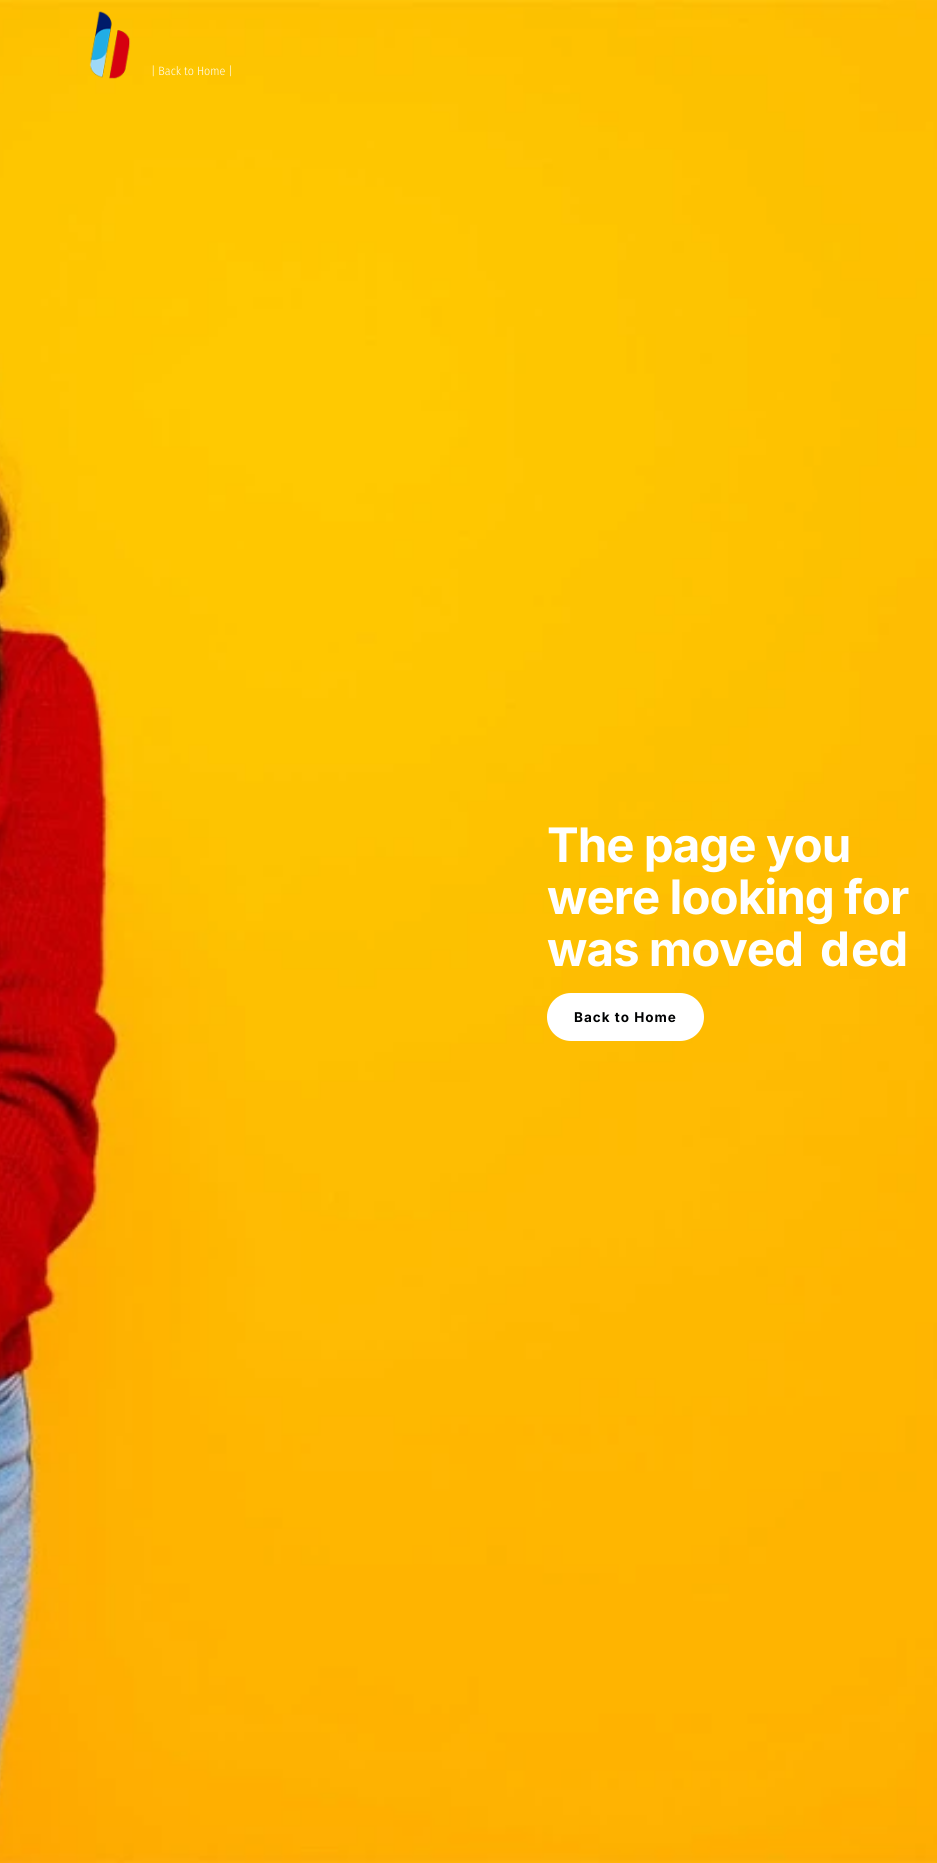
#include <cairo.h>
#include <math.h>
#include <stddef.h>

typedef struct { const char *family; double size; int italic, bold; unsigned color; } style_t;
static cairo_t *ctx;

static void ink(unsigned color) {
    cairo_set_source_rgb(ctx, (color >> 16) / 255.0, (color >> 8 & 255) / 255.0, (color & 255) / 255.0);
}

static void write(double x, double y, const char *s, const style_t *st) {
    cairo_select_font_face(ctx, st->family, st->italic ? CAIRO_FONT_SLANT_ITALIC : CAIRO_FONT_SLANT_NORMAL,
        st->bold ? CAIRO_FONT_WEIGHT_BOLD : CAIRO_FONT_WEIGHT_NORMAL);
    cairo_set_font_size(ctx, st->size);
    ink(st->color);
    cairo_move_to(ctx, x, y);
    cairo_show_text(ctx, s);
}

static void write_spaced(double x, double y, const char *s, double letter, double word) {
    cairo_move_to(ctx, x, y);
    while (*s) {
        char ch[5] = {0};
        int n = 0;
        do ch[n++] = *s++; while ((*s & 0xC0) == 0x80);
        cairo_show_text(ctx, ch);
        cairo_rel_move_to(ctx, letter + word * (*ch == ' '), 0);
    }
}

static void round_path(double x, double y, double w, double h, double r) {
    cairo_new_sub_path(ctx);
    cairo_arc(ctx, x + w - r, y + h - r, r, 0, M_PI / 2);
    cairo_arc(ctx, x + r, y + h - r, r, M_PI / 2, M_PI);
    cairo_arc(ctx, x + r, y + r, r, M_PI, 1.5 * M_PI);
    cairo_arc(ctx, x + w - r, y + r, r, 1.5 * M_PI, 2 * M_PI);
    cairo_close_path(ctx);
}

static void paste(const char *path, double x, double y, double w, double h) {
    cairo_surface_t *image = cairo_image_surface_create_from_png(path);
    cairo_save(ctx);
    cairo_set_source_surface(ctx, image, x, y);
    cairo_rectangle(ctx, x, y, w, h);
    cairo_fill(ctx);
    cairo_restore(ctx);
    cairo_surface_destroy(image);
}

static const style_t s1 = {"Fira Sans Condensed Light", 12, 0, 0, 0xffffff};

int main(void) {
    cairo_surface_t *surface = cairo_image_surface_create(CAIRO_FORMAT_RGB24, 937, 1863);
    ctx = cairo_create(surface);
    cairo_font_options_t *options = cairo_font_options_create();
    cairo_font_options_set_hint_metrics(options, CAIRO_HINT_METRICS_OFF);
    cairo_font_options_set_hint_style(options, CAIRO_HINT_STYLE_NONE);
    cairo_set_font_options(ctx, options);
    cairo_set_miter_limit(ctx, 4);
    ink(0xffffff);
    cairo_paint(ctx);
    paste("pic2.png", 0, 0, 937, 1863);
    paste("pic1.png", 89, 11, 42, 68);
    write(151, 75, "| Back to Home |", &s1);
    cairo_select_font_face(ctx, "Inter", CAIRO_FONT_SLANT_NORMAL, CAIRO_FONT_WEIGHT_BOLD);
    cairo_set_font_size(ctx, 47.5);
    write_spaced(547, 862, "The page you", -1, 0);
    write_spaced(547, 914, "were looking for", -1, 0);
    write_spaced(547, 966, "was moved", -1, 0);
    write_spaced(820, 966, "d", -1, 0);
    write_spaced(851, 966, "ed", -1, 0);
    round_path(547, 993, 157, 48, 24);
    cairo_fill(ctx);
    cairo_set_font_size(ctx, 13.5);
    ink(0x000102);
    write_spaced(574, 1022, "Back to Home", 1, 0);
    cairo_surface_write_to_png(surface, "screenshot.png");
    cairo_font_options_destroy(options);
    cairo_destroy(ctx);
    cairo_surface_destroy(surface);
    return 0;
}
